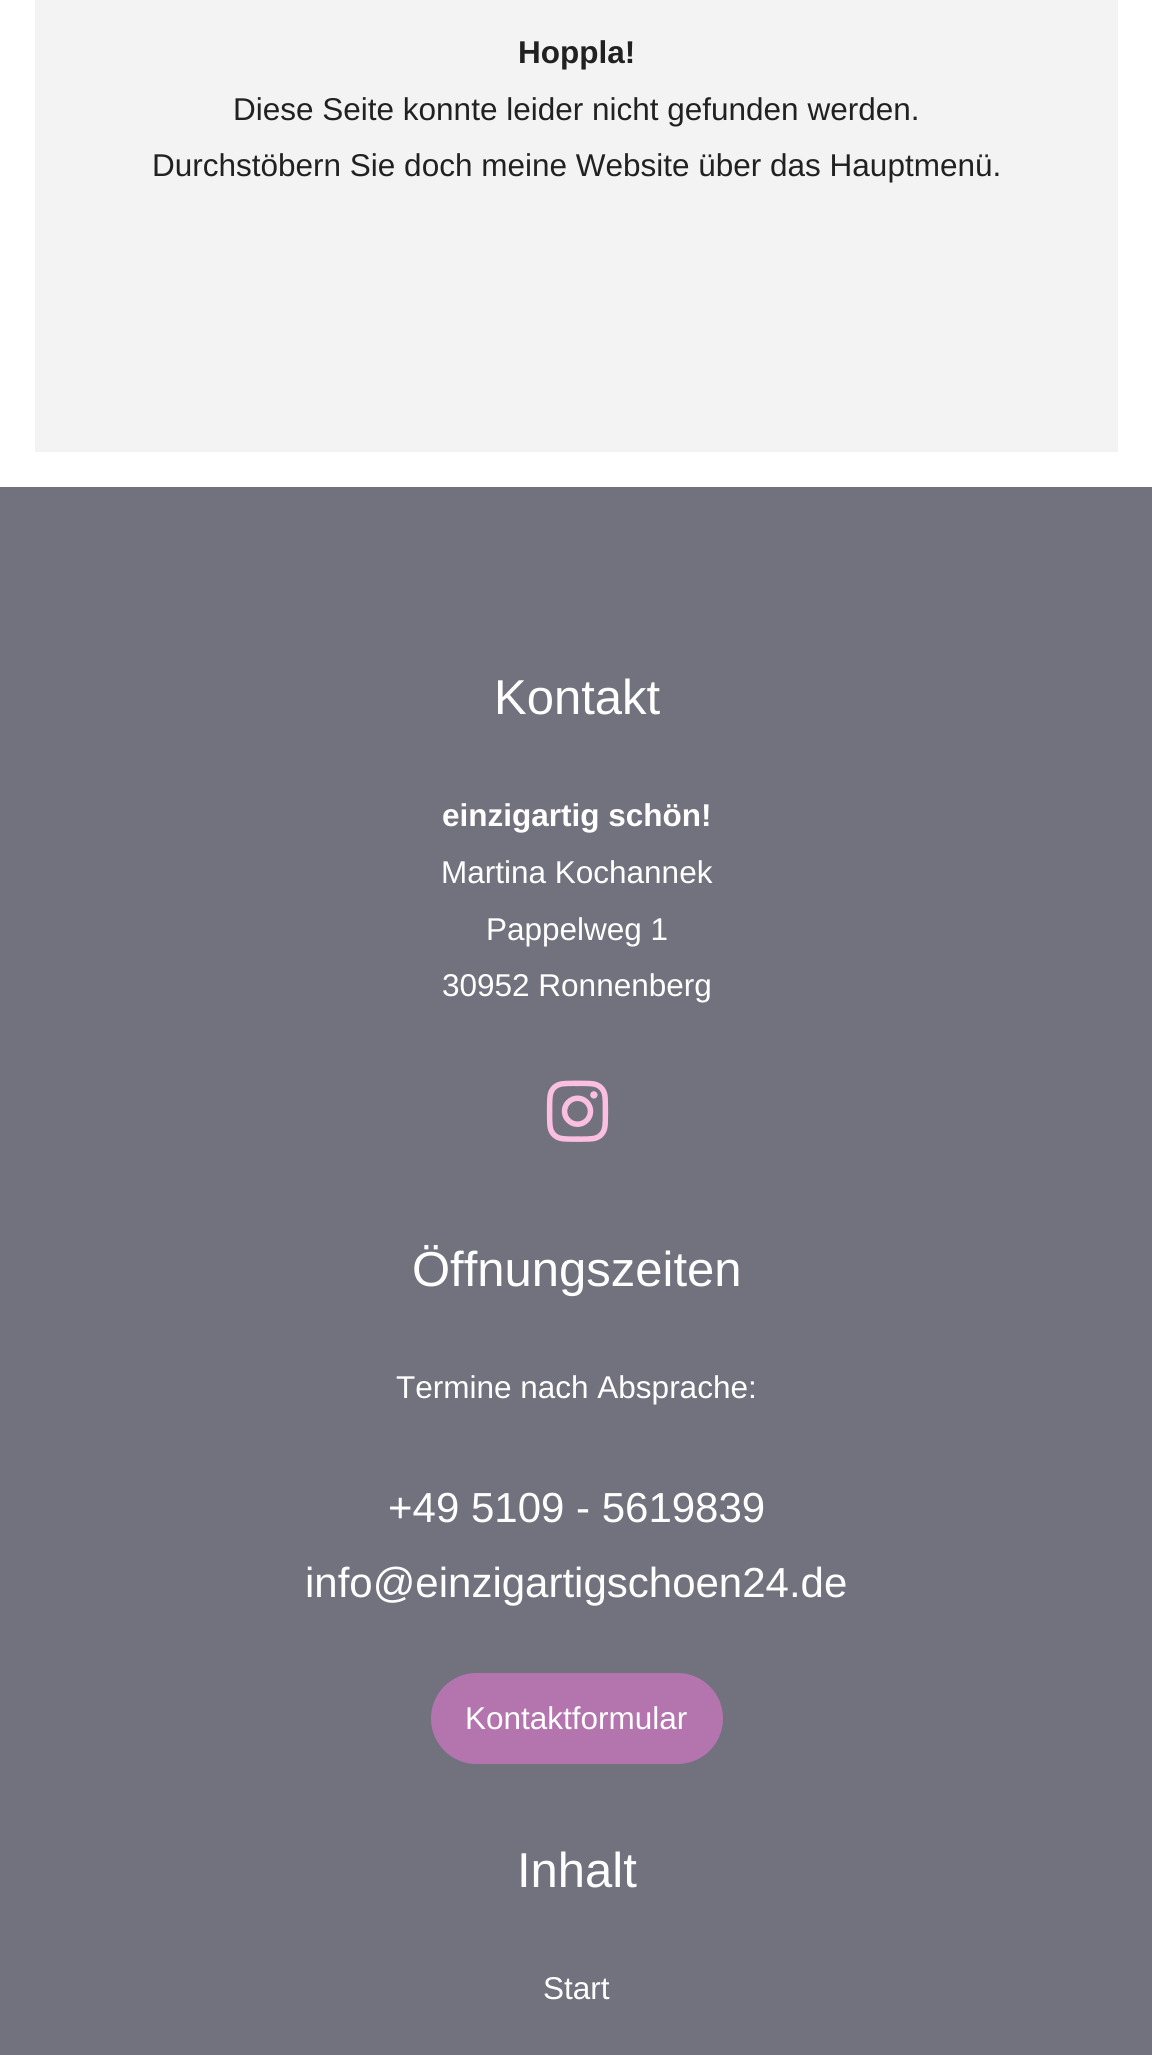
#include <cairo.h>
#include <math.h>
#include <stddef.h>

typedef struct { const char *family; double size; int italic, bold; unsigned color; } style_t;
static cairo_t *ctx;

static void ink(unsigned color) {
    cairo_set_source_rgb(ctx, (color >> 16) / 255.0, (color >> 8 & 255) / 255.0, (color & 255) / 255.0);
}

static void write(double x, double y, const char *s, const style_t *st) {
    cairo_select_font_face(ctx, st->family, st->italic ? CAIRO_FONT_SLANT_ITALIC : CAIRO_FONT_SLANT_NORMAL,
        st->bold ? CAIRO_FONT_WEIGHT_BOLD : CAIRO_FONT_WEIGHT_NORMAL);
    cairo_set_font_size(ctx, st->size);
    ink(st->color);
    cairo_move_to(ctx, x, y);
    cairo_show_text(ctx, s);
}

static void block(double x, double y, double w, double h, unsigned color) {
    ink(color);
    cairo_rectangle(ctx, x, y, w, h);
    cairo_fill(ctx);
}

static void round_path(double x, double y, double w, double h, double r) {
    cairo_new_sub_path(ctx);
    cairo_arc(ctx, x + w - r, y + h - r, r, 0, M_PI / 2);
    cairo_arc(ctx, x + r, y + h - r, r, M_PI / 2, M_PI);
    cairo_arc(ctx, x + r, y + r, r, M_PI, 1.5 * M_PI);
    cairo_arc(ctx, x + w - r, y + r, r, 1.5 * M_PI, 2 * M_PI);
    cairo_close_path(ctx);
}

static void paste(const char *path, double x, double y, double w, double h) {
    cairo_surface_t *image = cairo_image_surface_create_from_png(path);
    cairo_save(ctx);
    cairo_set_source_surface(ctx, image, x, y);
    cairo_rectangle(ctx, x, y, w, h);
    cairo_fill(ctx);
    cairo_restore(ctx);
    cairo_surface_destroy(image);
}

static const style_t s1 = {"Liberation Sans", 31.5, 0, 1, 0x212121};
static const style_t s2 = {"Liberation Sans", 31.5, 0, 0, 0x212121};
static const style_t s3 = {"Liberation Sans", 49, 0, 0, 0xffffff};
static const style_t s4 = {"Liberation Sans", 31.5, 0, 1, 0xffffff};
static const style_t s5 = {"Liberation Sans", 31.5, 0, 0, 0xffffff};
static const style_t s6 = {"Liberation Sans", 42, 0, 0, 0xffffff};

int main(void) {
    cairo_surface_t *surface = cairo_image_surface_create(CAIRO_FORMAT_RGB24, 1152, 2055);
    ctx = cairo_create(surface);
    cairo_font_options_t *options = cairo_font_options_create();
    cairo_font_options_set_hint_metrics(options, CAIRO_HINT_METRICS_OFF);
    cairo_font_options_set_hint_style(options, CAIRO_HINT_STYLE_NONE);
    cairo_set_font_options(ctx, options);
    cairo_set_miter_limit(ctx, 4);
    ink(0xffffff);
    cairo_paint(ctx);
    block(35, 0, 1083, 452, 0xf3f3f3);
    write(518, 63, "Hoppla!", &s1);
    write(233, 120, "Diese Seite konnte leider nicht gefunden werden.", &s2);
    write(152, 176, "Durchstöbern Sie doch meine Website über das Hauptmenü.", &s2);
    block(0, 487, 1152, 1568, 0x72727f);
    write(494, 714, "Kontakt", &s3);
    write(442, 826, "einzigartig schön!", &s4);
    write(441, 883, "Martina Kochannek", &s5);
    write(486, 940, "Pappelweg 1", &s5);
    write(442, 996, "30952 Ronnenberg", &s5);
    paste("pic1.png", 546, 1080, 63, 62);
    write(412, 1286, "Öffnungszeiten", &s3);
    write(396, 1398, "Termine nach Absprache:", &s5);
    write(388, 1522, "+49 5109 - 5619839", &s6);
    write(305, 1597, "info@einzigartigschoen24.de", &s6);
    ink(0xb475af);
    round_path(431, 1673, 292, 91, 45.5);
    cairo_fill(ctx);
    write(465, 1729, "Kontaktformular", &s5);
    write(517, 1887, "Inhalt", &s3);
    write(543, 1999, "Start", &s5);
    cairo_surface_write_to_png(surface, "screenshot.png");
    cairo_font_options_destroy(options);
    cairo_destroy(ctx);
    cairo_surface_destroy(surface);
    return 0;
}
